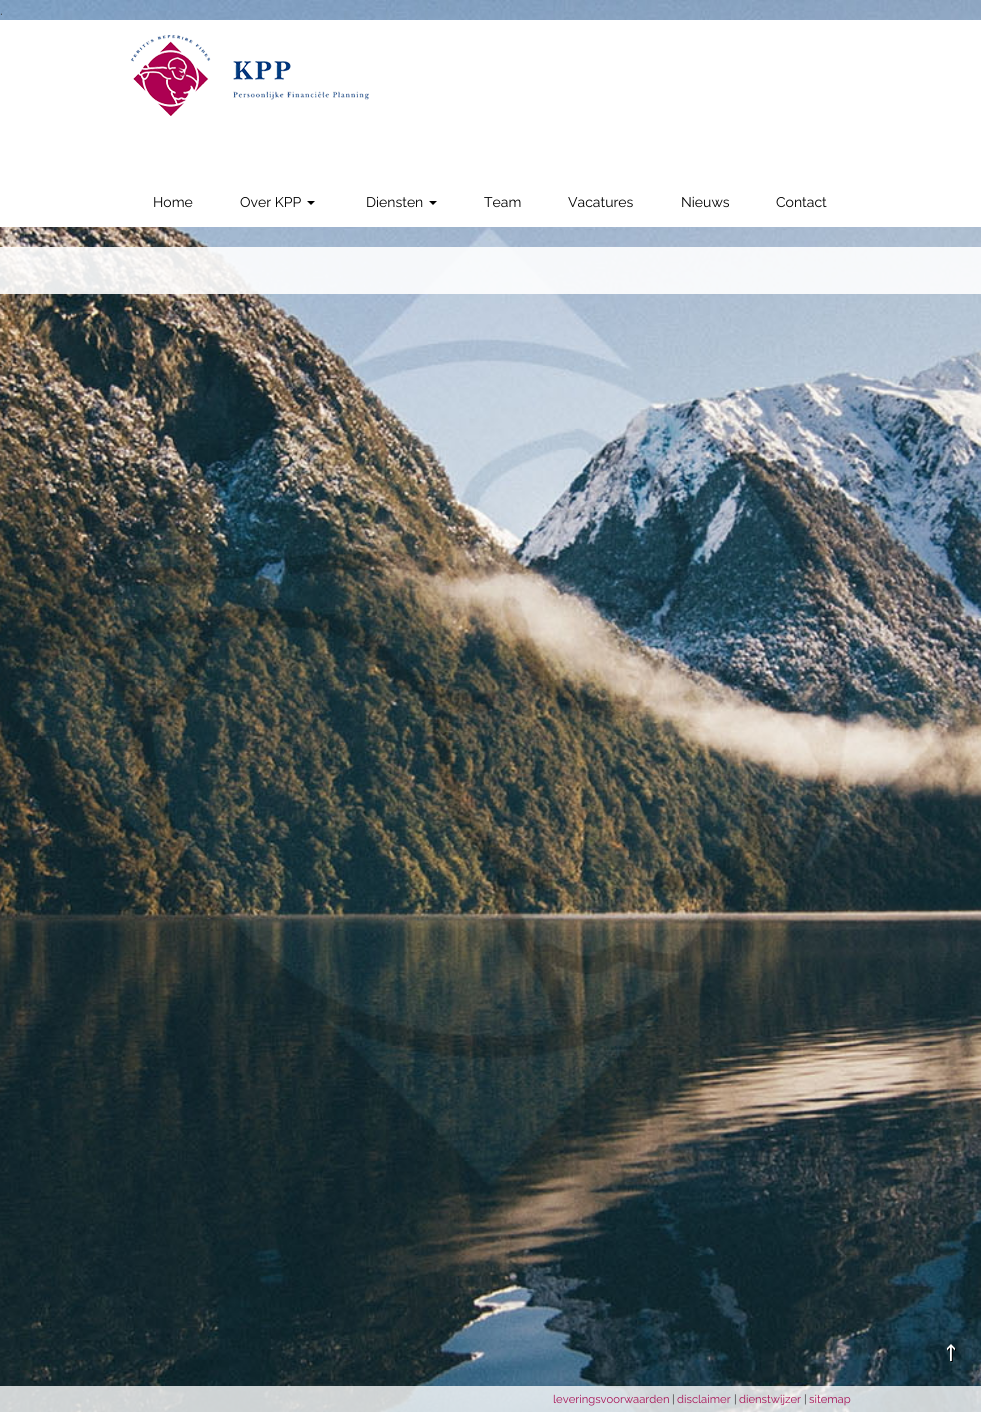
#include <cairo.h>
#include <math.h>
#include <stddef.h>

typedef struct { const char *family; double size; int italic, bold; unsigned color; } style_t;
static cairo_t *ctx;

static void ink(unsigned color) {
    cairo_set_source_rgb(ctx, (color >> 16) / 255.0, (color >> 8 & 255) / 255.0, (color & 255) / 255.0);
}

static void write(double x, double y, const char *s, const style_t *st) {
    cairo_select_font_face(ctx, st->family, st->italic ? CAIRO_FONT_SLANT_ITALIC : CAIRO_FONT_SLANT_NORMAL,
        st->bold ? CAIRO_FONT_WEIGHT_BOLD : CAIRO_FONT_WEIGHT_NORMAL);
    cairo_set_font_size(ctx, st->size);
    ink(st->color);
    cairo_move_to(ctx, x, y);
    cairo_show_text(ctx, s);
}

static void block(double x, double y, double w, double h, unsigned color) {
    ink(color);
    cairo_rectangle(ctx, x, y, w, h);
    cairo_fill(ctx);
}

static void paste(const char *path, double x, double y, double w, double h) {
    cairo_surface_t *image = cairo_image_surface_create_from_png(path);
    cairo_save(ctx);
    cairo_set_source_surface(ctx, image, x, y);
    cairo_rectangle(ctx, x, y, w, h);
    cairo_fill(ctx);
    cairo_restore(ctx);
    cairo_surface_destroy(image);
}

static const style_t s1 = {"Raleway", 14, 0, 0, 0x333333};
static const style_t s2 = {"Raleway", 14, 0, 0, 0x000000};
static const style_t s3 = {"Raleway", 11.25, 0, 0, 0xa81156};
static const style_t s4 = {"Raleway", 11.25, 0, 0, 0x333333};

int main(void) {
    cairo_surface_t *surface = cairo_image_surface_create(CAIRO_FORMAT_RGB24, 981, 1412);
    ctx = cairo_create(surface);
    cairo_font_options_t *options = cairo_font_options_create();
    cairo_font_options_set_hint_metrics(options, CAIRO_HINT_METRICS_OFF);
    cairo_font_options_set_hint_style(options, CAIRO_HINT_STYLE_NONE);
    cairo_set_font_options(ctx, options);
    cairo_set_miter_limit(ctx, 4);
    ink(0xffffff);
    cairo_paint(ctx);
    paste("pic1.png", 0, 0, 981, 1412);
    write(0, 15, ".", &s1);
    block(0, 20, 981, 207, 0xffffff);
    paste("pic2.png", 131, 35, 238, 81);
    write(153, 207, "Home", &s2);
    write(240, 207, "Over KPP", &s2);
    cairo_new_path(ctx);
    cairo_move_to(ctx, 307, 201);
    cairo_line_to(ctx, 315, 201);
    cairo_line_to(ctx, 311, 205);
    cairo_close_path(ctx);
    cairo_fill(ctx);
    write(366, 207, "Diensten", &s2);
    cairo_new_path(ctx);
    cairo_move_to(ctx, 429, 201);
    cairo_line_to(ctx, 437, 201);
    cairo_line_to(ctx, 433, 205);
    cairo_close_path(ctx);
    cairo_fill(ctx);
    write(484, 207, "Team", &s2);
    write(568, 207, "Vacatures", &s2);
    write(681, 207, "Nieuws", &s2);
    write(776, 207, "Contact", &s2);
    cairo_set_source_rgba(ctx, 1, 1, 1, 0.9);
    cairo_rectangle(ctx, 0, 247, 981, 47);
    cairo_fill(ctx);
    paste("pic3.png", 947, 1344, 9, 18);
    cairo_set_source_rgba(ctx, 1, 1, 1, 0.8);
    cairo_rectangle(ctx, 0, 1386, 981, 26);
    cairo_fill(ctx);
    write(553, 1403, "leveringsvoorwaarden", &s3);
    write(672, 1403, "|", &s4);
    write(677, 1403, "disclaimer", &s3);
    write(734, 1403, "|", &s4);
    write(739, 1403, "dienstwijzer", &s3);
    write(804, 1403, "|", &s4);
    write(809, 1403, "sitemap", &s3);
    cairo_surface_write_to_png(surface, "screenshot.png");
    cairo_font_options_destroy(options);
    cairo_destroy(ctx);
    cairo_surface_destroy(surface);
    return 0;
}
